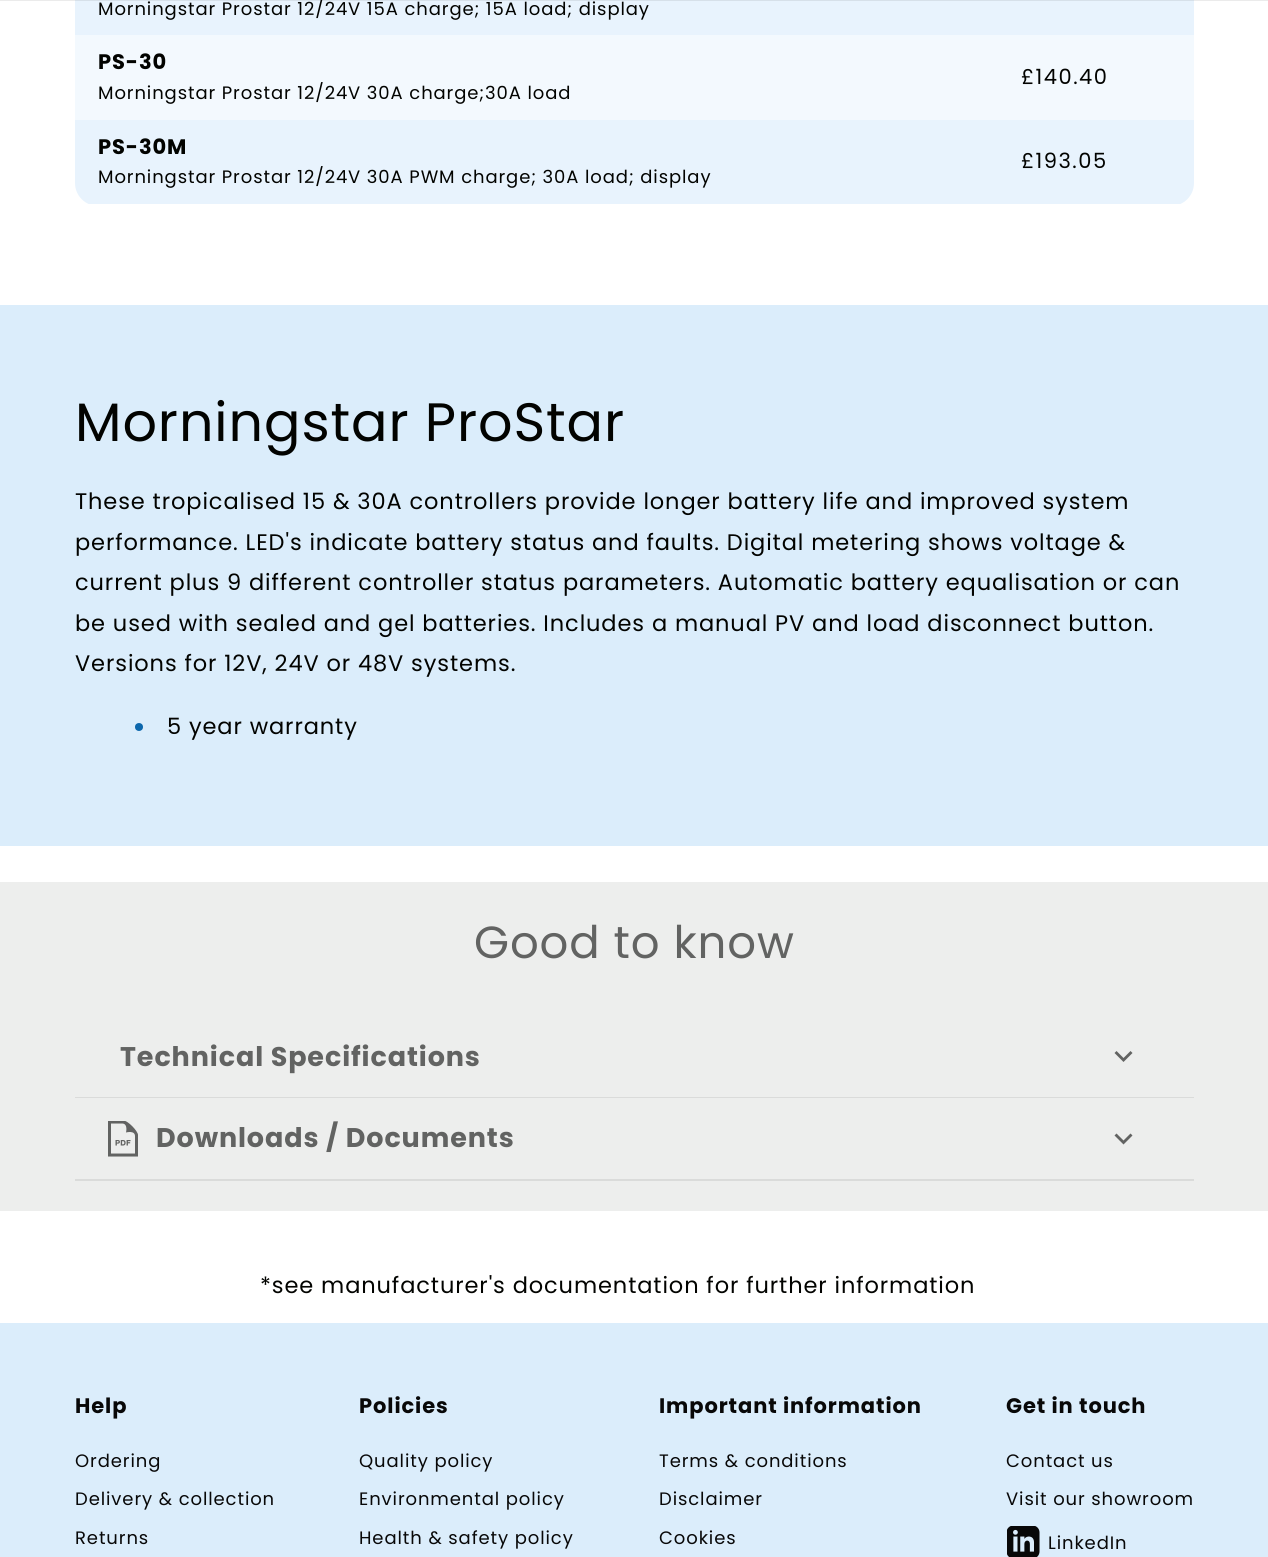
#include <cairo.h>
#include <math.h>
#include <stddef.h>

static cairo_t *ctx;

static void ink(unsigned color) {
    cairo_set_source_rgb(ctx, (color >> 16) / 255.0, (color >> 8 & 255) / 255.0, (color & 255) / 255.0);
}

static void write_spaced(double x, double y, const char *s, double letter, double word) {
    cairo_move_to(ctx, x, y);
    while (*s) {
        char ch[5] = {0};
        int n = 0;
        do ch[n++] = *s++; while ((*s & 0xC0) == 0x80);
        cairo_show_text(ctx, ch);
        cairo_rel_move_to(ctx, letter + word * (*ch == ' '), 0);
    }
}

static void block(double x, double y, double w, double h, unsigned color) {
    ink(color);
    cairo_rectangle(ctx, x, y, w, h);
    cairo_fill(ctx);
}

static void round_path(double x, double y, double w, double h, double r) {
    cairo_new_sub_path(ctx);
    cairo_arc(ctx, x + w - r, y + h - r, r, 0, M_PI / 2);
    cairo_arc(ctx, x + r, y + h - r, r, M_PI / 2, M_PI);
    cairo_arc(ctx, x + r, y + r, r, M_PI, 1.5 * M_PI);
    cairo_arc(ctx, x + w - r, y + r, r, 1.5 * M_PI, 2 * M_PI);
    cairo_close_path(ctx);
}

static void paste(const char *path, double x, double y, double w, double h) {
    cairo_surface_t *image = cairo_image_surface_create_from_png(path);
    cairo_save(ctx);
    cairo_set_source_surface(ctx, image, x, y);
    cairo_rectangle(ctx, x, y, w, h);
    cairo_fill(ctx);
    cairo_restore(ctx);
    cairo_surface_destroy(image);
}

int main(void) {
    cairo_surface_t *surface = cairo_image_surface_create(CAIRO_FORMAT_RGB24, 1268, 1557);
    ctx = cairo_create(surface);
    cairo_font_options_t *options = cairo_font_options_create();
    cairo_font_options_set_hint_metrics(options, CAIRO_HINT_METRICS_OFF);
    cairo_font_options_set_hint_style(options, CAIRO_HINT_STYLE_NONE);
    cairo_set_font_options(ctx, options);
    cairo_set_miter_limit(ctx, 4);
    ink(0xffffff);
    cairo_paint(ctx);
    block(75, 0, 1119, 35, 0xe8f3fd);
    cairo_set_source_rgba(ctx, 0.008, 0.012, 0, 0.08);
    cairo_rectangle(ctx, 0, 0, 1268, 1);
    cairo_fill(ctx);
    cairo_select_font_face(ctx, "Poppins", CAIRO_FONT_SLANT_NORMAL, CAIRO_FONT_WEIGHT_NORMAL);
    cairo_set_font_size(ctx, 18);
    ink(0x020300);
    write_spaced(98, 15, "Morningstar Prostar 12/24V 15A charge; 15A load; display", 0.9, 0);
    block(75, 35, 1119, 85, 0xf3f9fe);
    cairo_select_font_face(ctx, "Poppins", CAIRO_FONT_SLANT_NORMAL, CAIRO_FONT_WEIGHT_BOLD);
    cairo_set_font_size(ctx, 21);
    ink(0x020300);
    write_spaced(98, 69, "PS-30", 0.9, 0);
    cairo_select_font_face(ctx, "Poppins", CAIRO_FONT_SLANT_NORMAL, CAIRO_FONT_WEIGHT_NORMAL);
    cairo_set_font_size(ctx, 18);
    write_spaced(98, 99, "Morningstar Prostar 12/24V 30A charge;30A load", 0.9, 0);
    cairo_set_font_size(ctx, 21);
    write_spaced(1021, 84, "£140.40", 1.5, 0);
    cairo_save(ctx);
    round_path(75, -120, 1119, 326, 23);
    cairo_clip(ctx);
    block(75, 120, 1119, 84, 0xe8f3fd);
    cairo_restore(ctx);
    cairo_select_font_face(ctx, "Poppins", CAIRO_FONT_SLANT_NORMAL, CAIRO_FONT_WEIGHT_BOLD);
    write_spaced(98, 154, "PS-30M", 0.9, 0);
    cairo_select_font_face(ctx, "Poppins", CAIRO_FONT_SLANT_NORMAL, CAIRO_FONT_WEIGHT_NORMAL);
    cairo_set_font_size(ctx, 18);
    write_spaced(98, 183, "Morningstar Prostar 12/24V 30A PWM charge; 30A load; display", 0.9, 0);
    cairo_set_font_size(ctx, 21);
    write_spaced(1021, 168, "£193.05", 1.5, 0);
    block(0, 305, 1268, 541, 0xdbedfb);
    cairo_set_font_size(ctx, 54);
    ink(0x020300);
    write_spaced(75, 441, "Morningstar ProStar", 0.9, 0);
    cairo_set_font_size(ctx, 22.5);
    write_spaced(75, 509, "These tropicalised 15 & 30A controllers provide longer battery life and improved system", 0.9, 0);
    write_spaced(75, 550, "performance. LED's indicate battery status and faults. Digital metering shows voltage &", 0.9, 0);
    write_spaced(75, 590, "current plus 9 different controller status parameters. Automatic battery equalisation or can", 0.9, 0);
    write_spaced(75, 631, "be used with sealed and gel batteries. Includes a manual PV and load disconnect button.", 0.9, 0);
    write_spaced(75, 671, "Versions for 12V, 24V or 48V systems.", 0.9, 0);
    ink(0x0c67ac);
    cairo_new_path(ctx);
    cairo_arc(ctx, 139, 727, 4, 0, 2 * M_PI);
    cairo_fill(ctx);
    ink(0x020300);
    write_spaced(167, 734, "5 year warranty", 0.9, 0);
    block(0, 882, 1268, 329, 0xedeeed);
    cairo_set_font_size(ctx, 45);
    ink(0x626362);
    write_spaced(474, 958, "Good to know", 0.9, 0);
    block(75, 1097, 1119, 1, 0xdadbda);
    cairo_select_font_face(ctx, "Poppins", CAIRO_FONT_SLANT_NORMAL, CAIRO_FONT_WEIGHT_BOLD);
    cairo_set_font_size(ctx, 27);
    ink(0x626362);
    write_spaced(120, 1066, "Technical Specifications", 0.9, 0);
    cairo_new_path(ctx);
    cairo_move_to(ctx, 1130.5, 1051);
    cairo_line_to(ctx, 1123.5, 1058);
    cairo_line_to(ctx, 1116.5, 1051);
    cairo_line_to(ctx, 1114.5, 1053);
    cairo_line_to(ctx, 1123.5, 1062);
    cairo_line_to(ctx, 1132.5, 1053);
    cairo_close_path(ctx);
    cairo_fill(ctx);
    block(75, 1179, 1119, 2, 0xdadbda);
    paste("pic1.png", 108, 1121, 30, 36);
    ink(0x626362);
    write_spaced(156, 1147, "Downloads / Documents", 0.9, 0);
    cairo_new_path(ctx);
    cairo_move_to(ctx, 1130.5, 1133.5);
    cairo_line_to(ctx, 1123.5, 1140.5);
    cairo_line_to(ctx, 1116.5, 1133.5);
    cairo_line_to(ctx, 1114.5, 1135.5);
    cairo_line_to(ctx, 1123.5, 1144.5);
    cairo_line_to(ctx, 1132.5, 1135.5);
    cairo_close_path(ctx);
    cairo_fill(ctx);
    cairo_select_font_face(ctx, "Poppins", CAIRO_FONT_SLANT_NORMAL, CAIRO_FONT_WEIGHT_NORMAL);
    cairo_set_font_size(ctx, 22.5);
    ink(0x020300);
    write_spaced(260, 1293, "*see manufacturer's documentation for further information", 0.9, 0);
    block(0, 1323, 1268, 234, 0xdbedfb);
    cairo_select_font_face(ctx, "Poppins", CAIRO_FONT_SLANT_NORMAL, CAIRO_FONT_WEIGHT_BOLD);
    cairo_set_font_size(ctx, 21);
    ink(0x080808);
    write_spaced(75, 1413, "Help", 0.9, 0);
    cairo_select_font_face(ctx, "Poppins", CAIRO_FONT_SLANT_NORMAL, CAIRO_FONT_WEIGHT_NORMAL);
    cairo_set_font_size(ctx, 18);
    write_spaced(75, 1467, "Ordering", 0.9, 0);
    write_spaced(75, 1505, "Delivery & collection", 0.9, 0);
    write_spaced(75, 1544, "Returns", 0.9, 0);
    cairo_select_font_face(ctx, "Poppins", CAIRO_FONT_SLANT_NORMAL, CAIRO_FONT_WEIGHT_BOLD);
    cairo_set_font_size(ctx, 21);
    write_spaced(359, 1413, "Policies", 0.9, 0);
    cairo_select_font_face(ctx, "Poppins", CAIRO_FONT_SLANT_NORMAL, CAIRO_FONT_WEIGHT_NORMAL);
    cairo_set_font_size(ctx, 18);
    write_spaced(359, 1467, "Quality policy", 0.9, 0);
    write_spaced(359, 1505, "Environmental policy", 0.9, 0);
    write_spaced(359, 1544, "Health & safety policy", 0.9, 0);
    cairo_select_font_face(ctx, "Poppins", CAIRO_FONT_SLANT_NORMAL, CAIRO_FONT_WEIGHT_BOLD);
    cairo_set_font_size(ctx, 21);
    write_spaced(659, 1413, "Important information", 0.9, 0);
    cairo_select_font_face(ctx, "Poppins", CAIRO_FONT_SLANT_NORMAL, CAIRO_FONT_WEIGHT_NORMAL);
    cairo_set_font_size(ctx, 18);
    write_spaced(659, 1467, "Terms & conditions", 0.9, 0);
    write_spaced(659, 1505, "Disclaimer", 0.9, 0);
    write_spaced(659, 1544, "Cookies", 0.9, 0);
    cairo_select_font_face(ctx, "Poppins", CAIRO_FONT_SLANT_NORMAL, CAIRO_FONT_WEIGHT_BOLD);
    cairo_set_font_size(ctx, 21);
    write_spaced(1006, 1413, "Get in touch", 0.9, 0);
    cairo_select_font_face(ctx, "Poppins", CAIRO_FONT_SLANT_NORMAL, CAIRO_FONT_WEIGHT_NORMAL);
    cairo_set_font_size(ctx, 18);
    write_spaced(1006, 1467, "Contact us", 0.9, 0);
    write_spaced(1006, 1505, "Visit our showroom", 0.9, 0);
    paste("pic2.png", 1007, 1526, 33, 31);
    write_spaced(1048, 1549, "LinkedIn", 0.9, 0);
    cairo_surface_write_to_png(surface, "screenshot.png");
    cairo_font_options_destroy(options);
    cairo_destroy(ctx);
    cairo_surface_destroy(surface);
    return 0;
}
